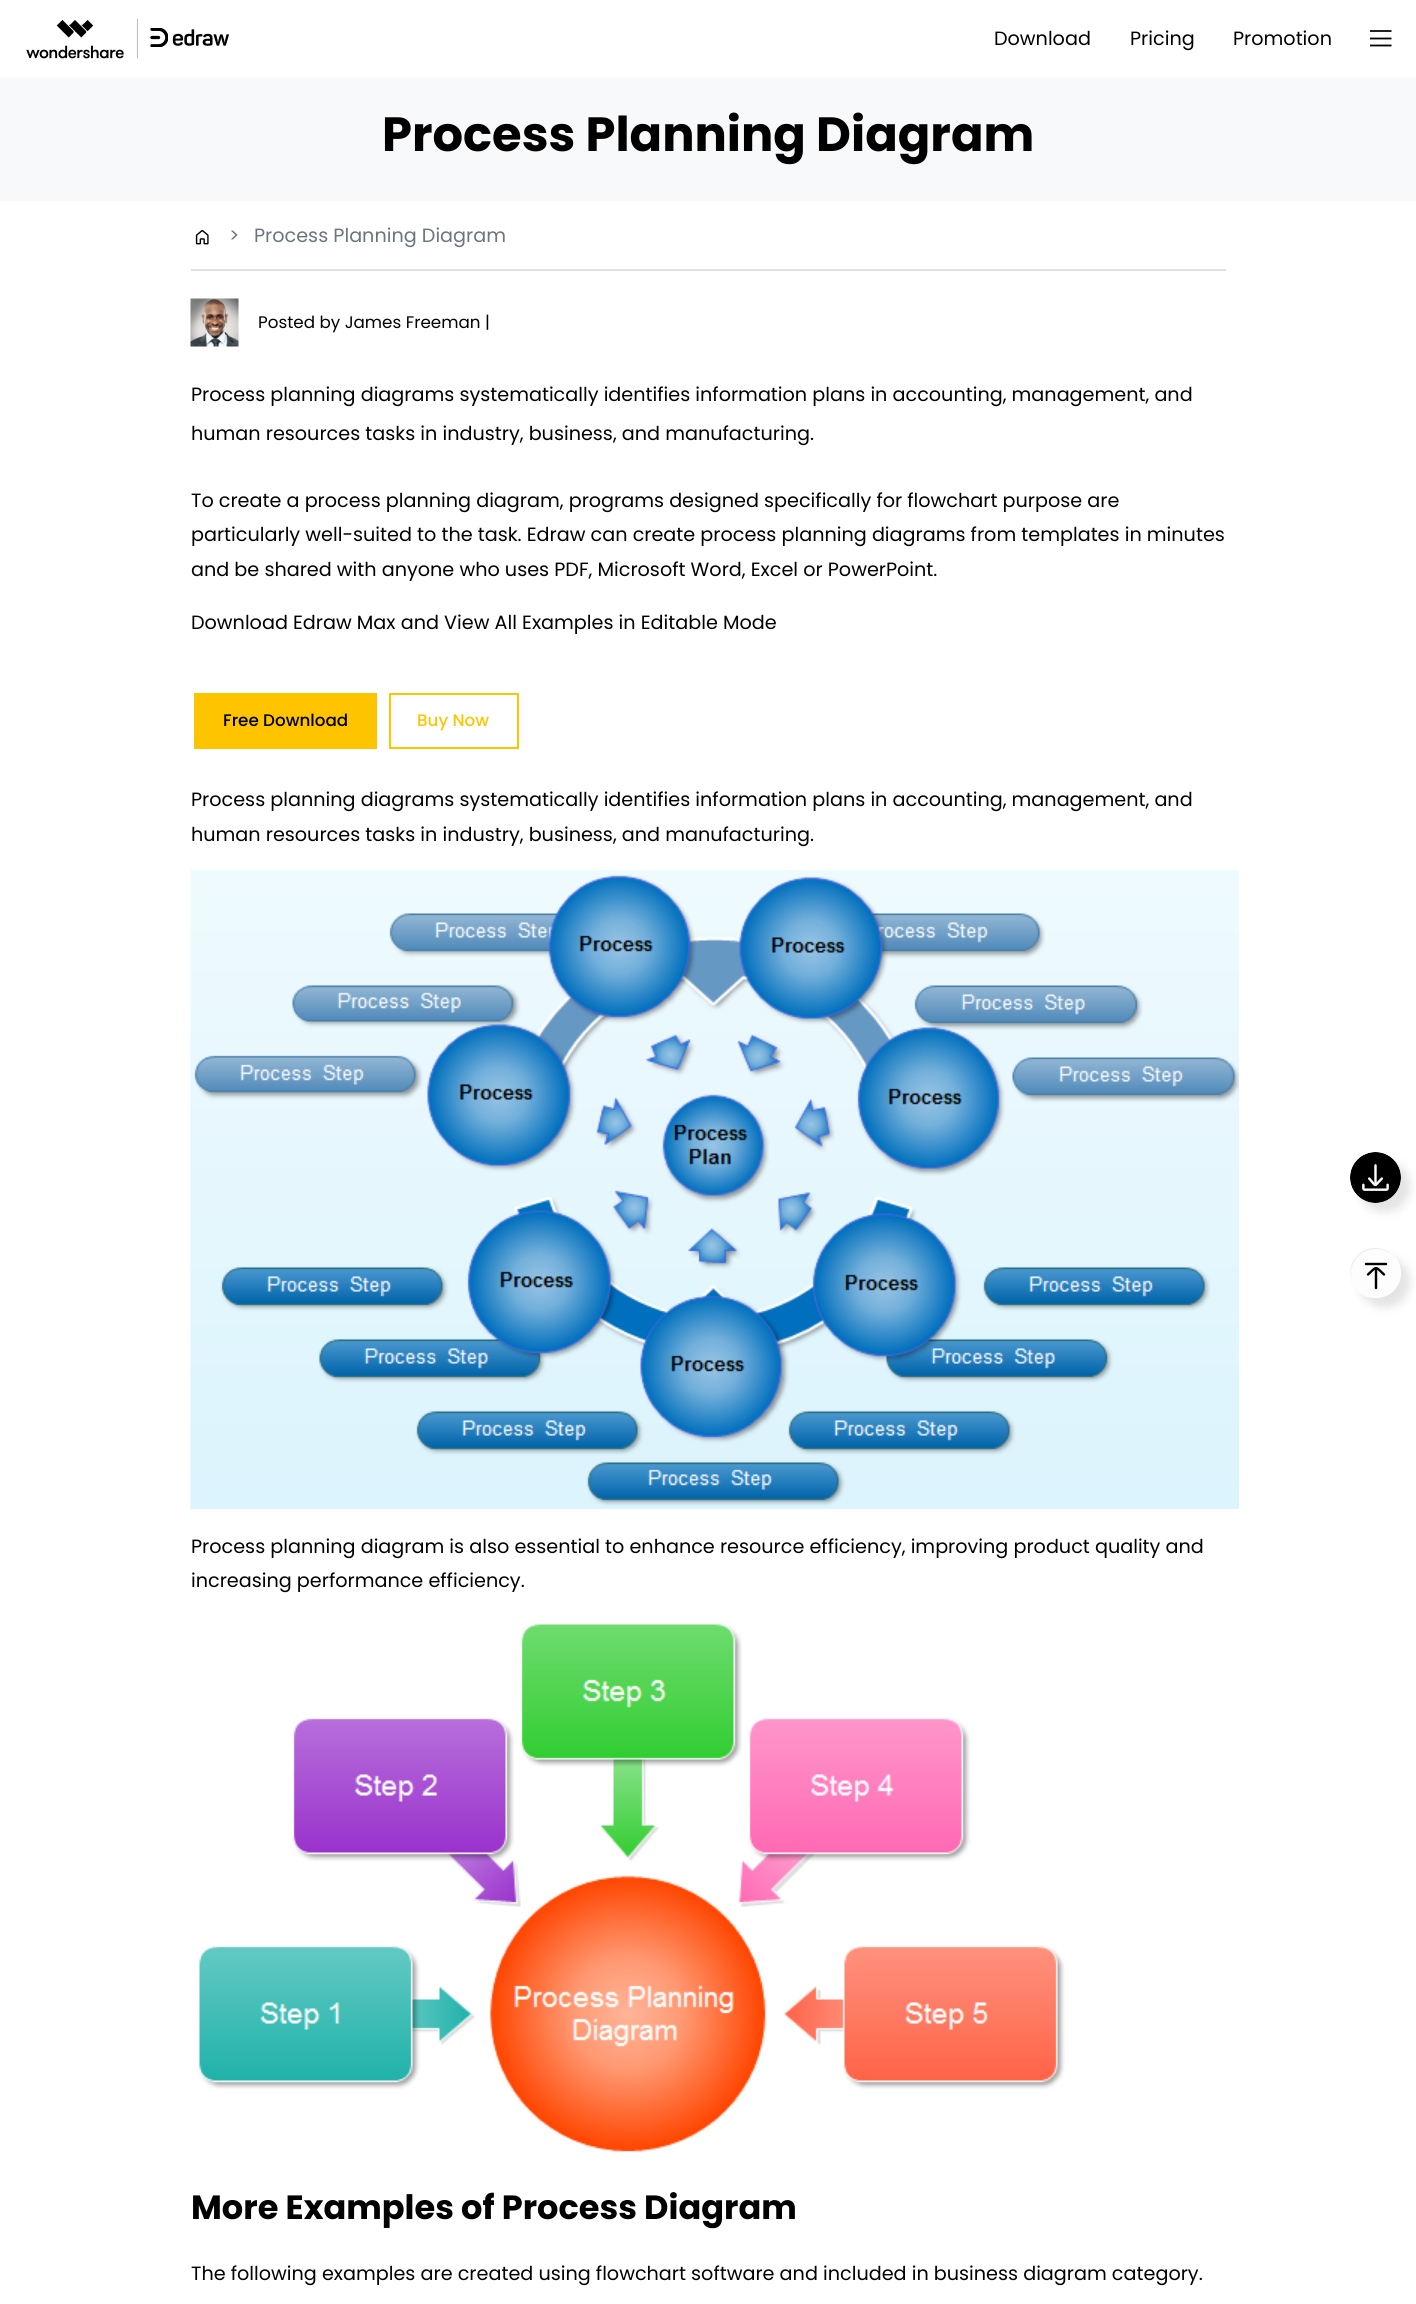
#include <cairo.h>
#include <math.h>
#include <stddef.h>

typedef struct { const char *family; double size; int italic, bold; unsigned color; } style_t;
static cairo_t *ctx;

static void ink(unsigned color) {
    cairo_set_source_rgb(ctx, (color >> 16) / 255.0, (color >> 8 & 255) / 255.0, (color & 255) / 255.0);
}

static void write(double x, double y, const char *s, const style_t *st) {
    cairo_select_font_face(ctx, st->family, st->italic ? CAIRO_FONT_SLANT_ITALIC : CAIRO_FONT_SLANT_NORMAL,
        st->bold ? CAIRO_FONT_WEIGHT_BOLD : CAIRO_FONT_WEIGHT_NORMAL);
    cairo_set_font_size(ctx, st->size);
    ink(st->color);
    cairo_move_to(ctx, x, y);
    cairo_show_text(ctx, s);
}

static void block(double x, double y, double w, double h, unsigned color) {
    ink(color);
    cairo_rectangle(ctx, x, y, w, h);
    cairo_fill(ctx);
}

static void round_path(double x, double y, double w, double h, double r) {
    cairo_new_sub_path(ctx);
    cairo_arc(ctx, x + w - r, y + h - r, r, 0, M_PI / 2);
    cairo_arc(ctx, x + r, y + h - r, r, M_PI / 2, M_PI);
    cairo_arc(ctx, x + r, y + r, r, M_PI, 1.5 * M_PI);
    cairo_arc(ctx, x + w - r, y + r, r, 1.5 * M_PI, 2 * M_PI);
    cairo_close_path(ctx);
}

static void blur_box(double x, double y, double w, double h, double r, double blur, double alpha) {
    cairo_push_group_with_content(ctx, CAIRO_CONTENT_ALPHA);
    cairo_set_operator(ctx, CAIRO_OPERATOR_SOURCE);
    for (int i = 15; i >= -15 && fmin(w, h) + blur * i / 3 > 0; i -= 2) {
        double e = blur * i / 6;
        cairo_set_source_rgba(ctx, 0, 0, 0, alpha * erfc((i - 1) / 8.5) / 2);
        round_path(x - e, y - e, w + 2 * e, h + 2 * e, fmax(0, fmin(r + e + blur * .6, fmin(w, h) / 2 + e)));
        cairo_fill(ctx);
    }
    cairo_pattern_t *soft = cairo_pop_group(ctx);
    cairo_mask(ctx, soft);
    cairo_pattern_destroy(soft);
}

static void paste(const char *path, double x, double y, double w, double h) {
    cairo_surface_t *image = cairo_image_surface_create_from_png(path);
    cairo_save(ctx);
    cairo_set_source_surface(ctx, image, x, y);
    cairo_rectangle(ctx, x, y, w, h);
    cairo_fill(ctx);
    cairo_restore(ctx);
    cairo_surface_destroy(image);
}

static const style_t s1 = {"Poppins", 19.2, 0, 0, 0x000000};
static const style_t s2 = {"Poppins", 48, 0, 1, 0x000000};
static const style_t s3 = {"Poppins", 19.2, 0, 0, 0x6c757d};
static const style_t s4 = {"Poppins", 16.75, 0, 0, 0x000000};
static const style_t s5 = {"Poppins Medium", 16.75, 0, 0, 0x000000};
static const style_t s6 = {"Poppins Medium", 16.75, 0, 0, 0xffc400};
static const style_t s7 = {"Poppins", 33.6, 0, 1, 0x000000};

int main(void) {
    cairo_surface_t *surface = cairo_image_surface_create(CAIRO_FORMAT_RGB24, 1416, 2304);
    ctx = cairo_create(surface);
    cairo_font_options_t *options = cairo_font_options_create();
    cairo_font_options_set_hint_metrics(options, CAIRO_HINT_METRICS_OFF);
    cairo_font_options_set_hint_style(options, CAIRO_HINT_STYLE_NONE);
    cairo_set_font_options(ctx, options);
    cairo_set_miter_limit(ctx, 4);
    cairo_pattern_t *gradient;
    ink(0xffffff);
    cairo_paint(ctx);
    paste("pic1.png", 26, 18, 203, 41);
    write(994, 45, "Download", &s1);
    write(1130, 45, "Pricing", &s1);
    write(1233, 45, "Promotion", &s1);
    cairo_new_path(ctx);
    cairo_move_to(ctx, 1370, 31);
    cairo_line_to(ctx, 1391.5, 31);
    cairo_move_to(ctx, 1370, 38.5);
    cairo_line_to(ctx, 1391.5, 38.5);
    cairo_move_to(ctx, 1370, 45.5);
    cairo_line_to(ctx, 1391.5, 45.5);
    cairo_set_line_width(ctx, 1.8);
    cairo_set_line_join(ctx, CAIRO_LINE_JOIN_BEVEL);
    cairo_stroke(ctx);
    block(0, 77, 1416, 124, 0xf8f9fa);
    write(382, 151, "Process Planning Diagram", &s2);
    block(191, 269, 1035, 2, 0xdee2e6);
    paste("pic2.png", 195, 230, 14, 15);
    write(229, 242, ">", &s3);
    write(254, 242, "Process Planning Diagram", &s3);
    paste("pic3.png", 190, 298, 49, 49);
    write(258, 328, "Posted by James Freeman |", &s4);
    write(191, 401, "Process planning diagrams systematically identifies information plans in accounting, management, and", &s1);
    write(191, 440, "human resources tasks in industry, business, and manufacturing.", &s1);
    write(191, 507, "To create a process planning diagram, programs designed specifically for flowchart purpose are", &s1);
    write(191, 541, "particularly well-suited to the task. Edraw can create process planning diagrams from templates in minutes", &s1);
    write(191, 576, "and be shared with anyone who uses PDF, Microsoft Word, Excel or PowerPoint.", &s1);
    write(191, 629, "Download Edraw Max and View All Examples in Editable Mode", &s1);
    block(194, 693, 183, 56, 0xffc400);
    write(223, 726, "Free Download", &s5);
    cairo_rectangle(ctx, 390, 694, 128, 54);
    ink(0xffc400);
    cairo_set_line_width(ctx, 2);
    cairo_set_line_join(ctx, CAIRO_LINE_JOIN_MITER);
    cairo_stroke(ctx);
    write(417, 726, "Buy Now", &s6);
    write(191, 806, "Process planning diagrams systematically identifies information plans in accounting, management, and", &s1);
    write(191, 841, "human resources tasks in industry, business, and manufacturing.", &s1);
    paste("pic4.png", 190, 870, 1049, 639);
    write(191, 1553, "Process planning diagram is also essential to enhance resource efficiency, improving product quality and", &s1);
    write(191, 1587, "increasing performance efficiency.", &s1);
    paste("pic5.png", 198, 1623, 867, 530);
    write(191, 2219, "More Examples of Process Diagram", &s7);
    write(191, 2280, "The following examples are created using flowchart software and included in business diagram category.", &s1);
    ink(0x7b7b7b);
    blur_box(1359, 1161, 51, 51, 25.5, 4.5, 0.21);
    paste("pic6.png", 1350, 1152, 51, 51);
    blur_box(1359, 1257, 51, 50, 25, 4.5, 0.21);
    ink(0xfdfdfd);
    cairo_new_path(ctx);
    cairo_move_to(ctx, 1376, 1248);
    cairo_curve_to(ctx, 1408, 1248, 1409, 1297, 1376, 1298);
    cairo_curve_to(ctx, 1352, 1299, 1341, 1267, 1362, 1253);
    cairo_curve_to(ctx, 1366, 1250, 1371, 1248, 1376, 1248);
    cairo_close_path(ctx);
    cairo_fill(ctx);
    cairo_save(ctx);
    round_path(1350, 1248, 51, 50, 25);
    cairo_clip(ctx);
    cairo_arc(ctx, 1375.5, 1273.5, 25, 0, 2 * M_PI);
    gradient = cairo_pattern_create_linear(1360, 1254, 1373, 1274);
    cairo_pattern_add_color_stop_rgba(gradient, 0, 0.902, 0.902, 0.902, 0.78);
    cairo_pattern_add_color_stop_rgba(gradient, 1, 1, 1, 1, 1);
    cairo_set_source(ctx, gradient);
    cairo_pattern_destroy(gradient);
    cairo_set_line_width(ctx, 1.2);
    cairo_stroke(ctx);
    cairo_restore(ctx);
    cairo_new_path(ctx);
    cairo_move_to(ctx, 1368, 1274.5);
    cairo_curve_to(ctx, 1377, 1266, 1375, 1266, 1384, 1274.5);
    cairo_move_to(ctx, 1376, 1268.5);
    cairo_line_to(ctx, 1376, 1288);
    cairo_move_to(ctx, 1366, 1264);
    cairo_line_to(ctx, 1386, 1264);
    ink(0x000000);
    cairo_set_line_width(ctx, 2.4);
    cairo_set_line_cap(ctx, CAIRO_LINE_CAP_ROUND);
    cairo_stroke(ctx);
    cairo_surface_write_to_png(surface, "screenshot.png");
    cairo_font_options_destroy(options);
    cairo_destroy(ctx);
    cairo_surface_destroy(surface);
    return 0;
}
